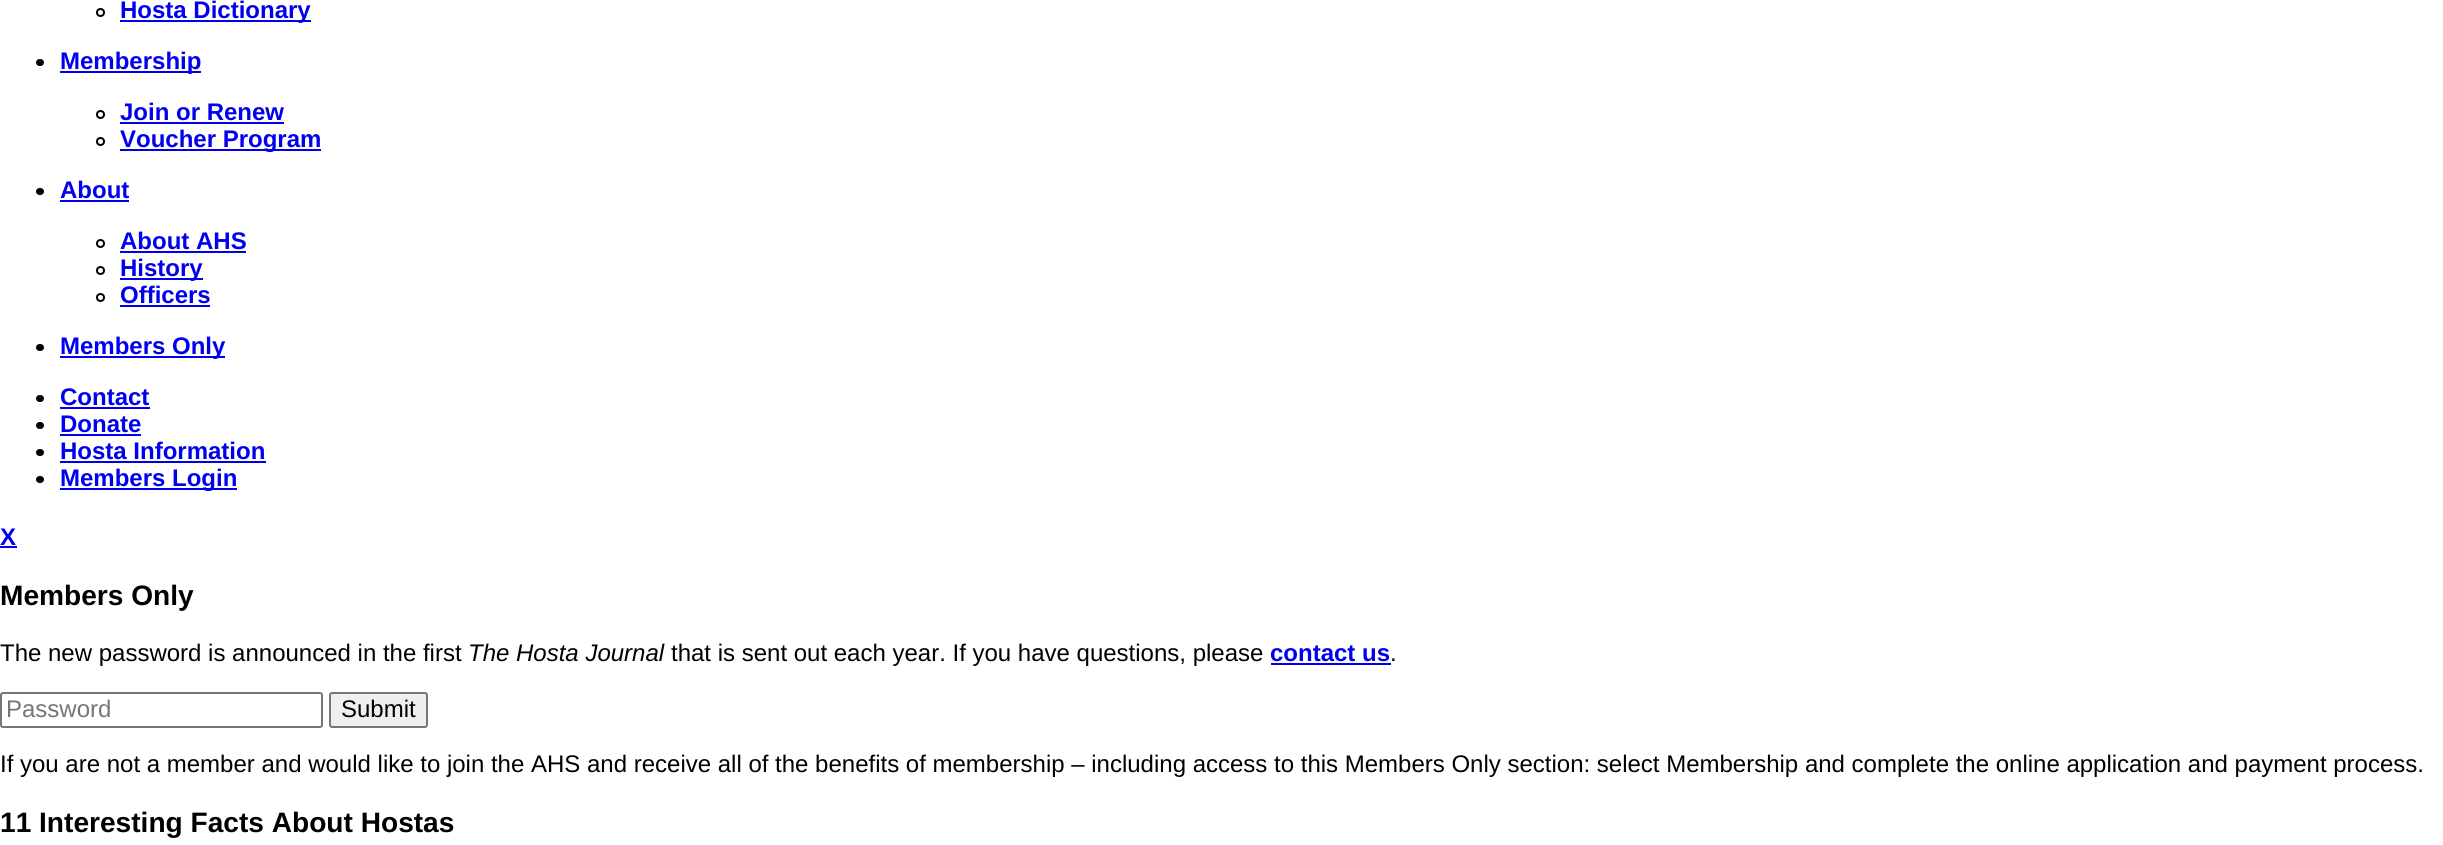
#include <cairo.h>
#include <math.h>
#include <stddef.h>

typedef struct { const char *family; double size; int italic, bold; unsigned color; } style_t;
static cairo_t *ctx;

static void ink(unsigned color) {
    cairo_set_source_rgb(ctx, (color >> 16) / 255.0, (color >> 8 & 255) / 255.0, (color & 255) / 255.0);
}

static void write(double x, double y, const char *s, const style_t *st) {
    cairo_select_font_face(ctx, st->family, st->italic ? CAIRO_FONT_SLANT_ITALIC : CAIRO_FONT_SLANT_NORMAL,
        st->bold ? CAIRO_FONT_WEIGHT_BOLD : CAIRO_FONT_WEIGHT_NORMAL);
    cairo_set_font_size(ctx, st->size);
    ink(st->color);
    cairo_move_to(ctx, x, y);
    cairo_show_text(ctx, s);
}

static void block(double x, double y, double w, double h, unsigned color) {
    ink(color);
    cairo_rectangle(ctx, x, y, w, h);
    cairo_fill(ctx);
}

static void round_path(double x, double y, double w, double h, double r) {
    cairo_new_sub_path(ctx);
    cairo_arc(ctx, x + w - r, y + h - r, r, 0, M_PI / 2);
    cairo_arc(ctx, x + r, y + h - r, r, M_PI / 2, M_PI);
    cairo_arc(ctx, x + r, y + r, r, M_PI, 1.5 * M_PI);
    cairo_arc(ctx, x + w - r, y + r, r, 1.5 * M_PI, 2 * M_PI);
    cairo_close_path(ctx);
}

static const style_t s1 = {"Liberation Sans", 24, 0, 1, 0x0000ee};
static const style_t s2 = {"Liberation Sans", 28.1, 0, 1, 0x000000};
static const style_t s3 = {"Liberation Sans", 24, 0, 0, 0x000000};
static const style_t s4 = {"Liberation Sans", 24, 1, 0, 0x000000};
static const style_t s5 = {"Liberation Sans", 24, 0, 0, 0x757575};

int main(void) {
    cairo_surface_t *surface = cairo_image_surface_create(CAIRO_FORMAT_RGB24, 2443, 845);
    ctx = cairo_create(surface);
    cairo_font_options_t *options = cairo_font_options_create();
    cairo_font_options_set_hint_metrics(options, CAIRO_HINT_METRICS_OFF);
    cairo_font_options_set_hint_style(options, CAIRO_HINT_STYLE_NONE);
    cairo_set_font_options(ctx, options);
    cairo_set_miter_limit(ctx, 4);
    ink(0xffffff);
    cairo_paint(ctx);
    cairo_arc(ctx, 100.5, 12.5, 3.5, 0, 2 * M_PI);
    ink(0x000000);
    cairo_stroke(ctx);
    block(120, 20, 191, 2, 0x0000ee);
    write(120, 18, "Hosta Dictionary", &s1);
    ink(0x000000);
    round_path(36, 59, 8, 7, 3.5);
    cairo_fill(ctx);
    block(60, 71, 141, 2, 0x0000ee);
    write(60, 69, "Membership", &s1);
    cairo_new_path(ctx);
    cairo_arc(ctx, 100.5, 114.5, 3.5, 0, 2 * M_PI);
    ink(0x000000);
    cairo_stroke(ctx);
    write(120, 120, "Join or Renew", &s1);
    block(120, 122, 164, 2, 0x0000ee);
    cairo_new_path(ctx);
    cairo_arc(ctx, 100.5, 141.5, 3.5, 0, 2 * M_PI);
    ink(0x000000);
    cairo_stroke(ctx);
    block(120, 149, 201, 2, 0x0000ee);
    write(120, 147, "Voucher Program", &s1);
    ink(0x000000);
    round_path(36, 188, 8, 7, 3.5);
    cairo_fill(ctx);
    write(60, 198, "About", &s1);
    block(60, 200, 69, 2, 0x0000ee);
    cairo_new_path(ctx);
    cairo_arc(ctx, 100.5, 243.5, 3.5, 0, 2 * M_PI);
    ink(0x000000);
    cairo_stroke(ctx);
    write(120, 249, "About AHS", &s1);
    block(120, 251, 126, 2, 0x0000ee);
    cairo_new_path(ctx);
    cairo_arc(ctx, 100.5, 270.5, 3.5, 0, 2 * M_PI);
    ink(0x000000);
    cairo_stroke(ctx);
    block(120, 278, 83, 2, 0x0000ee);
    write(120, 276, "History", &s1);
    cairo_new_path(ctx);
    cairo_arc(ctx, 100.5, 297.5, 3.5, 0, 2 * M_PI);
    ink(0x000000);
    cairo_stroke(ctx);
    write(120, 303, "Officers", &s1);
    block(120, 305, 90, 2, 0x0000ee);
    ink(0x000000);
    round_path(36, 344, 8, 7, 3.5);
    cairo_fill(ctx);
    block(60, 356, 165, 2, 0x0000ee);
    write(60, 354, "Members Only", &s1);
    ink(0x000000);
    round_path(36, 395, 8, 7, 3.5);
    cairo_fill(ctx);
    write(60, 405, "Contact", &s1);
    block(60, 407, 90, 2, 0x0000ee);
    ink(0x000000);
    round_path(36, 422, 8, 7, 3.5);
    cairo_fill(ctx);
    write(60, 432, "Donate", &s1);
    block(60, 434, 81, 2, 0x0000ee);
    ink(0x000000);
    round_path(36, 449, 8, 7, 3.5);
    cairo_fill(ctx);
    write(60, 459, "Hosta Information", &s1);
    block(60, 461, 206, 2, 0x0000ee);
    ink(0x000000);
    round_path(36, 476, 8, 7, 3.5);
    cairo_fill(ctx);
    block(60, 488, 177, 2, 0x0000ee);
    write(60, 486, "Members Login", &s1);
    write(0, 545, "X", &s1);
    block(0, 546, 17, 2, 0x0000ee);
    write(0, 605, "Members Only", &s2);
    write(0, 661, "The new password is announced in the first", &s3);
    write(468, 661, "The Hosta Journal", &s4);
    write(671, 661, "that is sent out each year. If you have questions, please", &s3);
    write(1270, 661, "contact us", &s1);
    block(1271, 663, 120, 2, 0x0000ee);
    write(1390, 661, ".", &s3);
    round_path(1, 693, 321, 34, 2);
    ink(0x767676);
    cairo_stroke(ctx);
    write(6, 717, "Password", &s5);
    ink(0xefefef);
    round_path(330, 693, 97, 34, 2);
    cairo_fill_preserve(ctx);
    ink(0x767676);
    cairo_stroke(ctx);
    write(341, 717, "Submit", &s3);
    write(0, 772, "If you are not a member and would like to join the AHS and receive all of the benefits of membership – including access to this Members Only section: select Membership and complete the online application and payment process.", &s3);
    write(0, 832, "11 Interesting Facts About Hostas", &s2);
    cairo_surface_write_to_png(surface, "screenshot.png");
    cairo_font_options_destroy(options);
    cairo_destroy(ctx);
    cairo_surface_destroy(surface);
    return 0;
}
